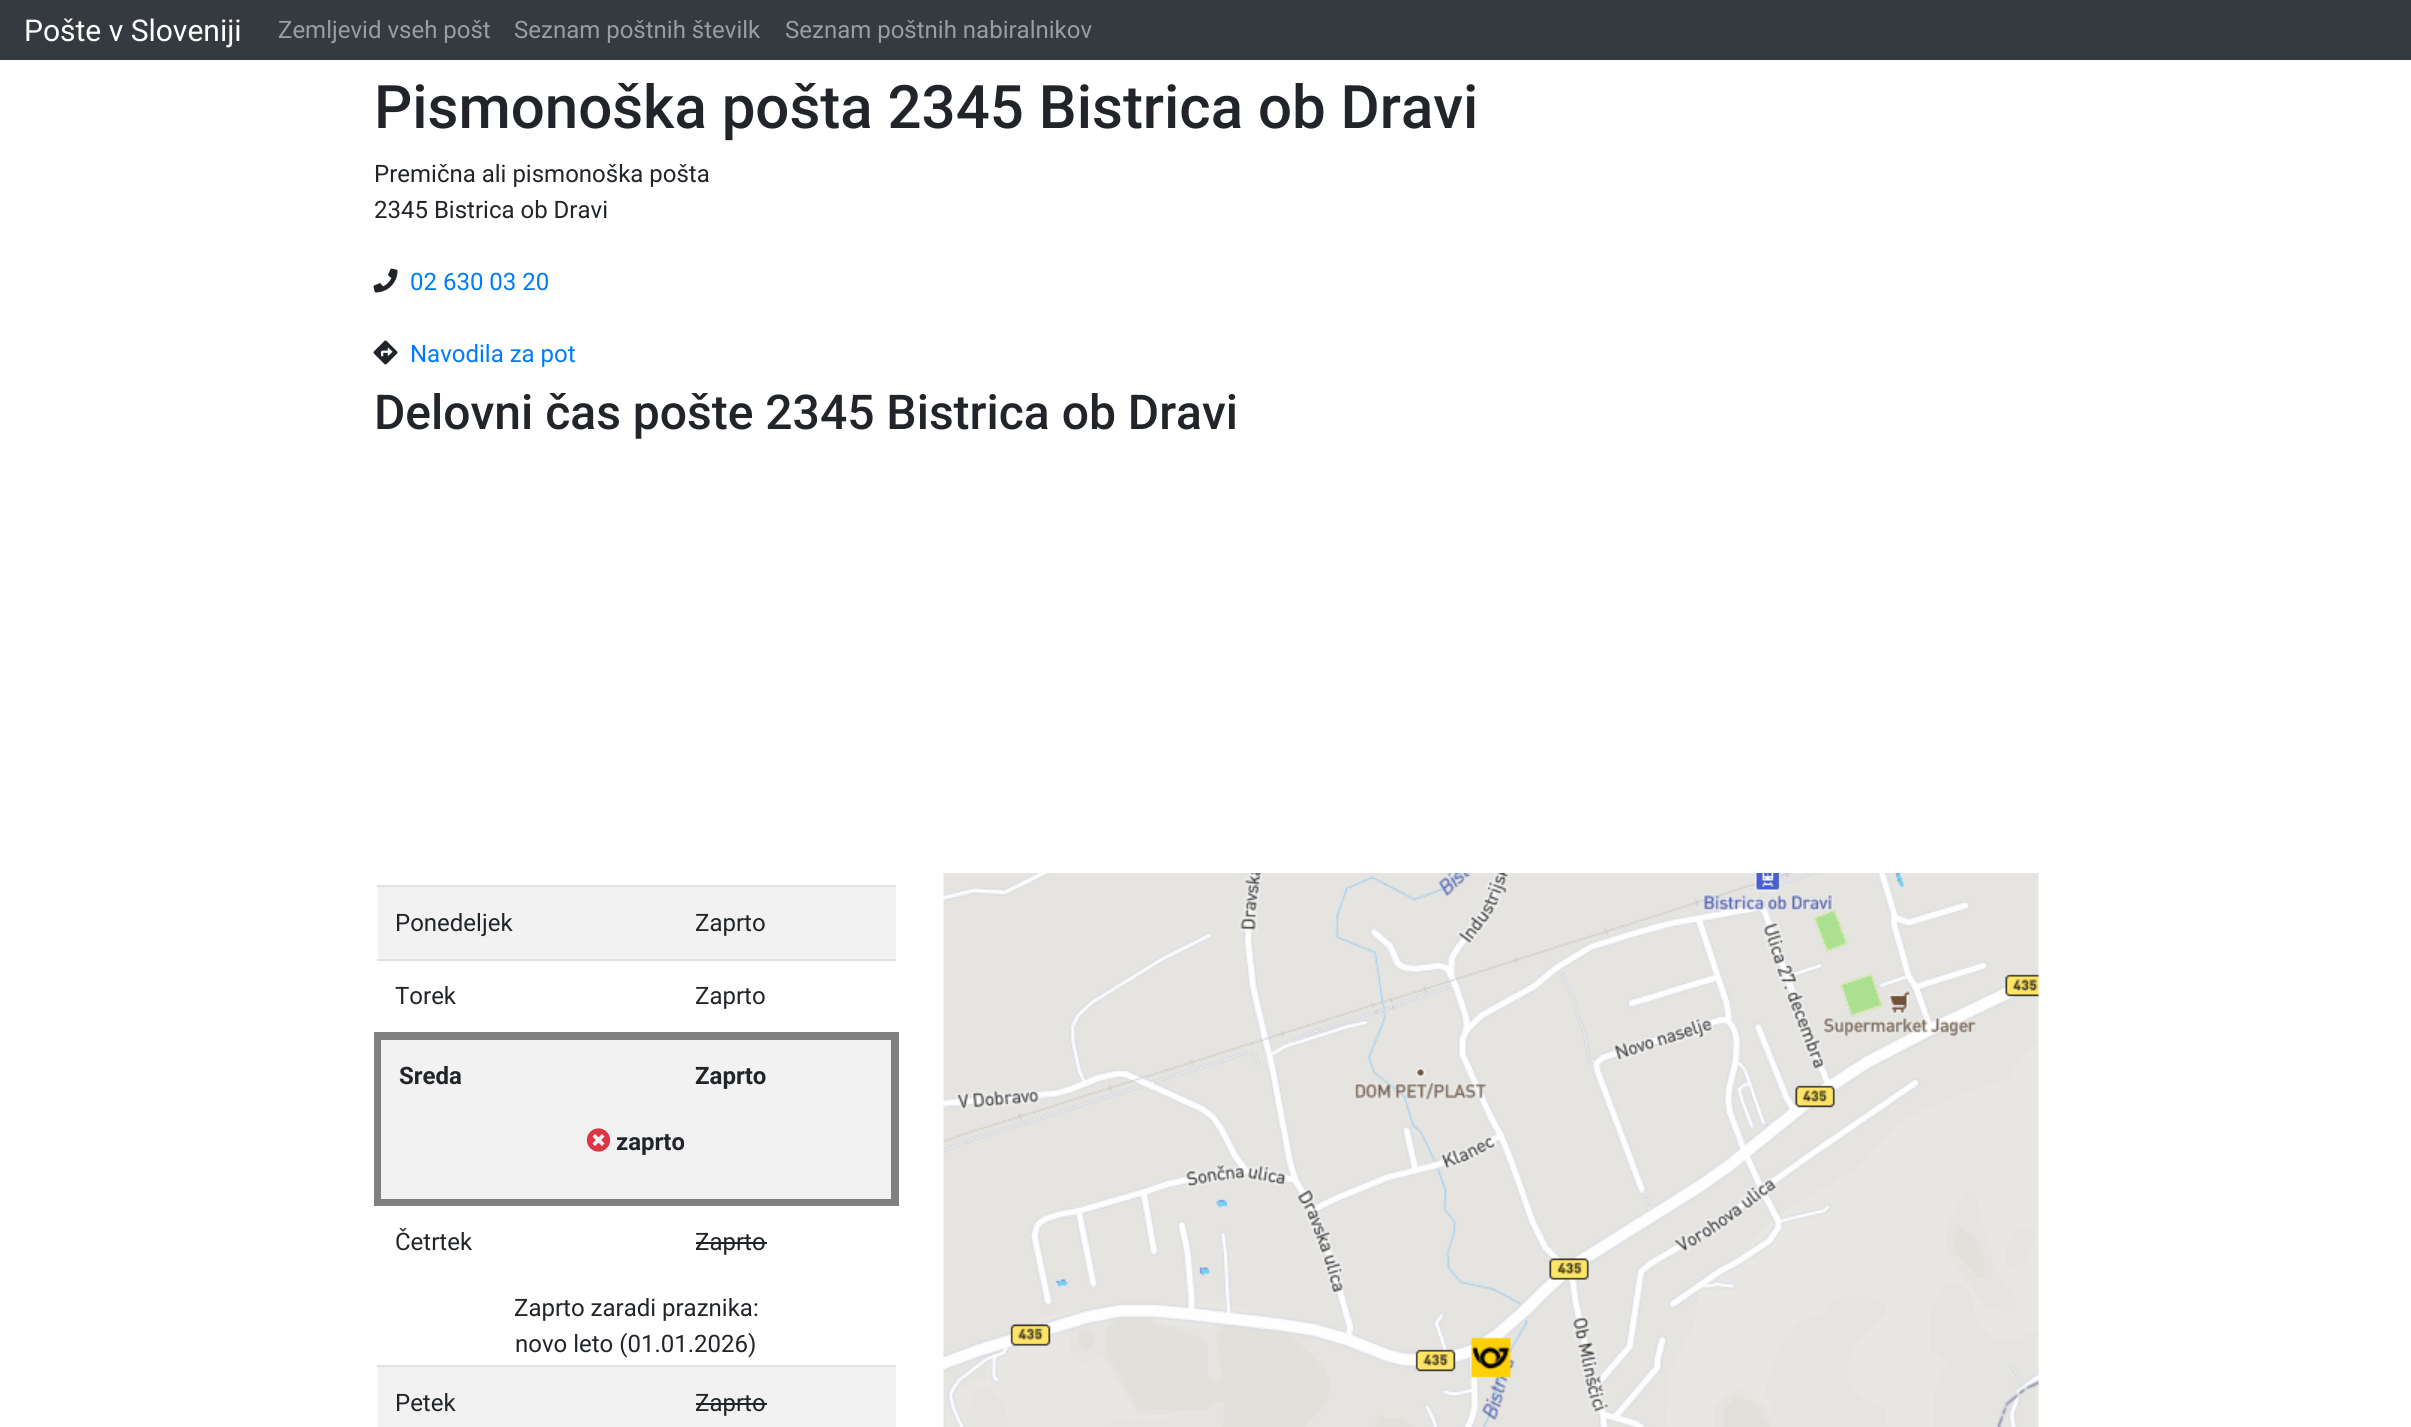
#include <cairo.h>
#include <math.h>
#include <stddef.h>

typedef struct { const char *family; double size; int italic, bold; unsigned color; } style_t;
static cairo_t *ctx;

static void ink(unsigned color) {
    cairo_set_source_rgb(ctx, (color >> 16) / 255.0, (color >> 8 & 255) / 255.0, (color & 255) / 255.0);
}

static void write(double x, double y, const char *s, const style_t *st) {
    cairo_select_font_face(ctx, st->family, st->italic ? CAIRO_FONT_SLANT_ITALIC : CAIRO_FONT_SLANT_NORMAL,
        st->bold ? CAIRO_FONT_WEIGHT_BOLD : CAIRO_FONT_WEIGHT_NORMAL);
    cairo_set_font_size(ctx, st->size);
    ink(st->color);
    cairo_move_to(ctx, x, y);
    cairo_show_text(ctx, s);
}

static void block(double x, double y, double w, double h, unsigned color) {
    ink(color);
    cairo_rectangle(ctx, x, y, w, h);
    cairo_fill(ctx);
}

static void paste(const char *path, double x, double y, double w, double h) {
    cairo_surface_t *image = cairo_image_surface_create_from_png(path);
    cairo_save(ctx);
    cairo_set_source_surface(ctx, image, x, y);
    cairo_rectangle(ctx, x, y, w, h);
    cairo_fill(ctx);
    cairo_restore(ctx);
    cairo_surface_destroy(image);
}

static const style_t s1 = {"Roboto", 30, 0, 0, 0xffffff};
static const style_t s2 = {"Roboto", 24, 0, 0, 0x9a9da0};
static const style_t s3 = {"Roboto Medium", 60, 0, 0, 0x212529};
static const style_t s4 = {"Roboto", 24, 0, 0, 0x212529};
static const style_t s5 = {"Roboto", 24, 0, 0, 0x007bff};
static const style_t s6 = {"Roboto Medium", 48, 0, 0, 0x212529};
static const style_t s7 = {"Roboto", 24, 0, 1, 0x212529};

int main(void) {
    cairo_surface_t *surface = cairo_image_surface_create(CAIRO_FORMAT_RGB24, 2411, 1427);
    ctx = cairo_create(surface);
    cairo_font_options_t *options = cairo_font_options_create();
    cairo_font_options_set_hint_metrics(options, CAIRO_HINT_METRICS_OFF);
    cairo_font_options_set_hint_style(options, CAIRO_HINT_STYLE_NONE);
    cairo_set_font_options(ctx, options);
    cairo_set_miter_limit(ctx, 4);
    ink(0xffffff);
    cairo_paint(ctx);
    block(0, 0, 2411, 60, 0x343a40);
    write(24, 41, "Pošte v Sloveniji", &s1);
    write(278, 38, "Zemljevid vseh pošt", &s2);
    write(514, 38, "Seznam poštnih številk", &s2);
    write(785, 38, "Seznam poštnih nabiralnikov", &s2);
    write(374, 128, "Pismonoška pošta 2345 Bistrica ob Dravi", &s3);
    write(374, 182, "Premična ali pismonoška pošta", &s4);
    write(374, 218, "2345 Bistrica ob Dravi", &s4);
    paste("pic1.png", 373, 268, 25, 25);
    write(410, 290, "02 630 03 20", &s5);
    paste("pic2.png", 373, 340, 25, 25);
    write(410, 362, "Navodila za pot", &s5);
    write(374, 429, "Delovni čas pošte 2345 Bistrica ob Dravi", &s6);
    block(378, 887, 518, 72, 0xf2f2f2);
    write(395, 931, "Ponedeljek", &s4);
    block(377, 885, 519, 2, 0xdee2e6);
    write(695, 931, "Zaprto", &s4);
    write(395, 1004, "Torek", &s4);
    block(377, 959, 519, 2, 0xdee2e6);
    write(695, 1004, "Zaprto", &s4);
    block(381, 1040, 510, 159, 0xf2f2f2);
    block(374, 1032, 525, 8, 0x808080);
    block(891, 1032, 8, 174, 0x808080);
    block(374, 1199, 525, 7, 0x808080);
    block(374, 1032, 7, 174, 0x808080);
    write(399, 1084, "Sreda", &s7);
    write(695, 1084, "Zaprto", &s7);
    paste("pic3.png", 586, 1128, 25, 24);
    write(616, 1150, "zaprto", &s7);
    write(395, 1250, "Četrtek", &s4);
    write(695, 1250, "Zaprto", &s4);
    block(696, 1242, 71, 2, 0x212529);
    write(514, 1316, "Zaprto zaradi praznika:", &s4);
    write(515, 1352, "novo leto (01.01.2026)", &s4);
    block(378, 1367, 518, 60, 0xf2f2f2);
    write(395, 1411, "Petek", &s4);
    block(377, 1365, 519, 2, 0xdee2e6);
    write(695, 1411, "Zaprto", &s4);
    block(696, 1403, 71, 2, 0x212529);
    paste("pic4.png", 943, 873, 1096, 554);
    cairo_surface_write_to_png(surface, "screenshot.png");
    cairo_font_options_destroy(options);
    cairo_destroy(ctx);
    cairo_surface_destroy(surface);
    return 0;
}
